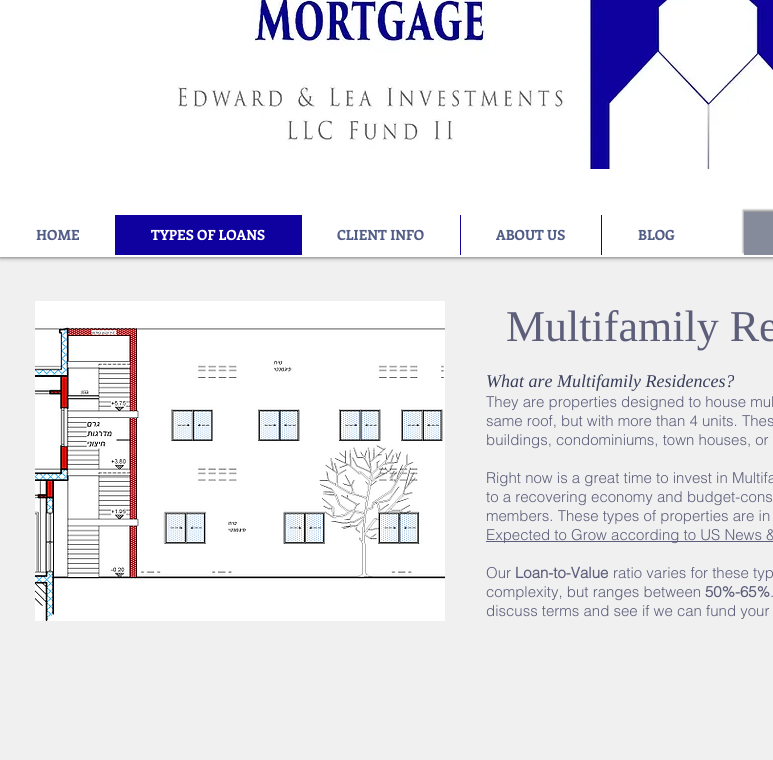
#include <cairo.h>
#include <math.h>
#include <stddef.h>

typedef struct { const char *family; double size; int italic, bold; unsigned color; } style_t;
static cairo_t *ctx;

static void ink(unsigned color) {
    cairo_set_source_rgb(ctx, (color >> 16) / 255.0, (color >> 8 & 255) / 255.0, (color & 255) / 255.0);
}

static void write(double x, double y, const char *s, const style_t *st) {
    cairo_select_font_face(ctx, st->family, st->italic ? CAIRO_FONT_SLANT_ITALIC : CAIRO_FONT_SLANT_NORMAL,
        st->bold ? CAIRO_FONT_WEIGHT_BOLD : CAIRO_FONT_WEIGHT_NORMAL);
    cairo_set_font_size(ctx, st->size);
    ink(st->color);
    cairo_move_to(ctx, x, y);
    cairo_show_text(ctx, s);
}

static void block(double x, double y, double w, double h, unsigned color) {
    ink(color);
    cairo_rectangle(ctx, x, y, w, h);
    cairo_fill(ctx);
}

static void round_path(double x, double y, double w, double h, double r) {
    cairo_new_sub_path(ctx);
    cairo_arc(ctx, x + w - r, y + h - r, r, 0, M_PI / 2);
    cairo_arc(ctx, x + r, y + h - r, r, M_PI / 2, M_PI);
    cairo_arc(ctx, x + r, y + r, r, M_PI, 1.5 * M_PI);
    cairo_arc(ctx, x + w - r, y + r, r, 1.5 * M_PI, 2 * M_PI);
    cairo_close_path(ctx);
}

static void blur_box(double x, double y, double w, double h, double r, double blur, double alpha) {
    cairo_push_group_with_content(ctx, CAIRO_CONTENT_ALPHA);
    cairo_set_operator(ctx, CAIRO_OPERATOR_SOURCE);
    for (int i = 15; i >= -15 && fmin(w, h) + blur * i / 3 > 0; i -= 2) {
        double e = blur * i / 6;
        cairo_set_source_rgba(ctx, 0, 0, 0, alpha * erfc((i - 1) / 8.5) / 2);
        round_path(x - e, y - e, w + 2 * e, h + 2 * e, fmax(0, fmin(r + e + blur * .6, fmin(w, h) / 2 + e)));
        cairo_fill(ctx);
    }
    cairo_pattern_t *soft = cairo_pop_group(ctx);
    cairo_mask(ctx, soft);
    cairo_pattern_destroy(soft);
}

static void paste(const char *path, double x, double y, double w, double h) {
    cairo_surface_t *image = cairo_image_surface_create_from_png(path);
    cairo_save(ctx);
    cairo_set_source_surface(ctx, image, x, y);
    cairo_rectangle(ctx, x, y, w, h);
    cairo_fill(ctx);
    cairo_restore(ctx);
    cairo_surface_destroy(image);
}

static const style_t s1 = {"Enriqueta", 14, 0, 1, 0x515d87};
static const style_t s2 = {"Enriqueta", 14, 0, 1, 0xffffff};
static const style_t s3 = {"Liberation Serif", 44, 0, 0, 0x5c5e7a};
static const style_t s4 = {"Liberation Serif", 18, 1, 0, 0x363e5a};
static const style_t s5 = {"helvetica Light", 15, 0, 0, 0x5c5e7a};
static const style_t s6 = {"helvetica", 15, 0, 1, 0x5c5e7a};

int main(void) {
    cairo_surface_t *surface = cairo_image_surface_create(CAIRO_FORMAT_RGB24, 773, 760);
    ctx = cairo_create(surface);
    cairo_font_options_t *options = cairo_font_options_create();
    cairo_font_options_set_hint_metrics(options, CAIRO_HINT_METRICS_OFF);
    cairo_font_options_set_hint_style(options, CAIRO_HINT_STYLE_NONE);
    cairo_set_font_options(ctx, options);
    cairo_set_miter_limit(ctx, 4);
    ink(0xf0f0f0);
    cairo_paint(ctx);
    ink(0x000000);
    blur_box(0, -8, 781, 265, 0, 2.5, 0.7);
    block(0, 0, 773, 257, 0xffffff);
    paste("pic1.png", 178, 0, 595, 169);
    write(36, 240, "HOME", &s1);
    block(115, 215, 187, 40, 0x0f00a0);
    write(151, 240, "TYPES OF LOANS", &s2);
    write(337, 240, "CLIENT INFO", &s1);
    block(460, 215, 1, 40, 0x0f00a0);
    write(496, 240, "ABOUT US", &s1);
    block(601, 215, 1, 40, 0x0f00a0);
    write(638, 240, "BLOG", &s1);
    ink(0x000000);
    blur_box(743, 210, 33, 43, 0, 1, 0.4);
    block(744, 212, 29, 43, 0x868b9c);
    paste("pic2.png", 35, 301, 410, 320);
    write(506, 341, "Multifamily Re", &s3);
    write(486, 387, "What are Multifamily Residences?", &s4);
    write(486, 407, "They are properties designed to house mul", &s5);
    write(486, 426, "same roof, but with more than 4 units. Thes", &s5);
    write(486, 445, "buildings, condominiums, town houses, or", &s5);
    write(486, 483, "Right now is a great time to invest in Multifa", &s5);
    write(486, 502, "to a recovering economy and budget-cons", &s5);
    write(486, 521, "members. These types of properties are in", &s5);
    block(486, 541, 287, 1, 0x5c5e7a);
    write(486, 540, "Expected to Grow according to US News &", &s5);
    write(486, 578, "Our", &s5);
    write(515, 578, "Loan-to-Value", &s6);
    write(613, 578, "ratio varies for these typ", &s5);
    write(486, 597, "complexity, but ranges between", &s5);
    write(705, 597, "50%-65%", &s6);
    write(770, 597, ".", &s5);
    write(486, 616, "discuss terms and see if we can fund your", &s5);
    cairo_surface_write_to_png(surface, "screenshot.png");
    cairo_font_options_destroy(options);
    cairo_destroy(ctx);
    cairo_surface_destroy(surface);
    return 0;
}
